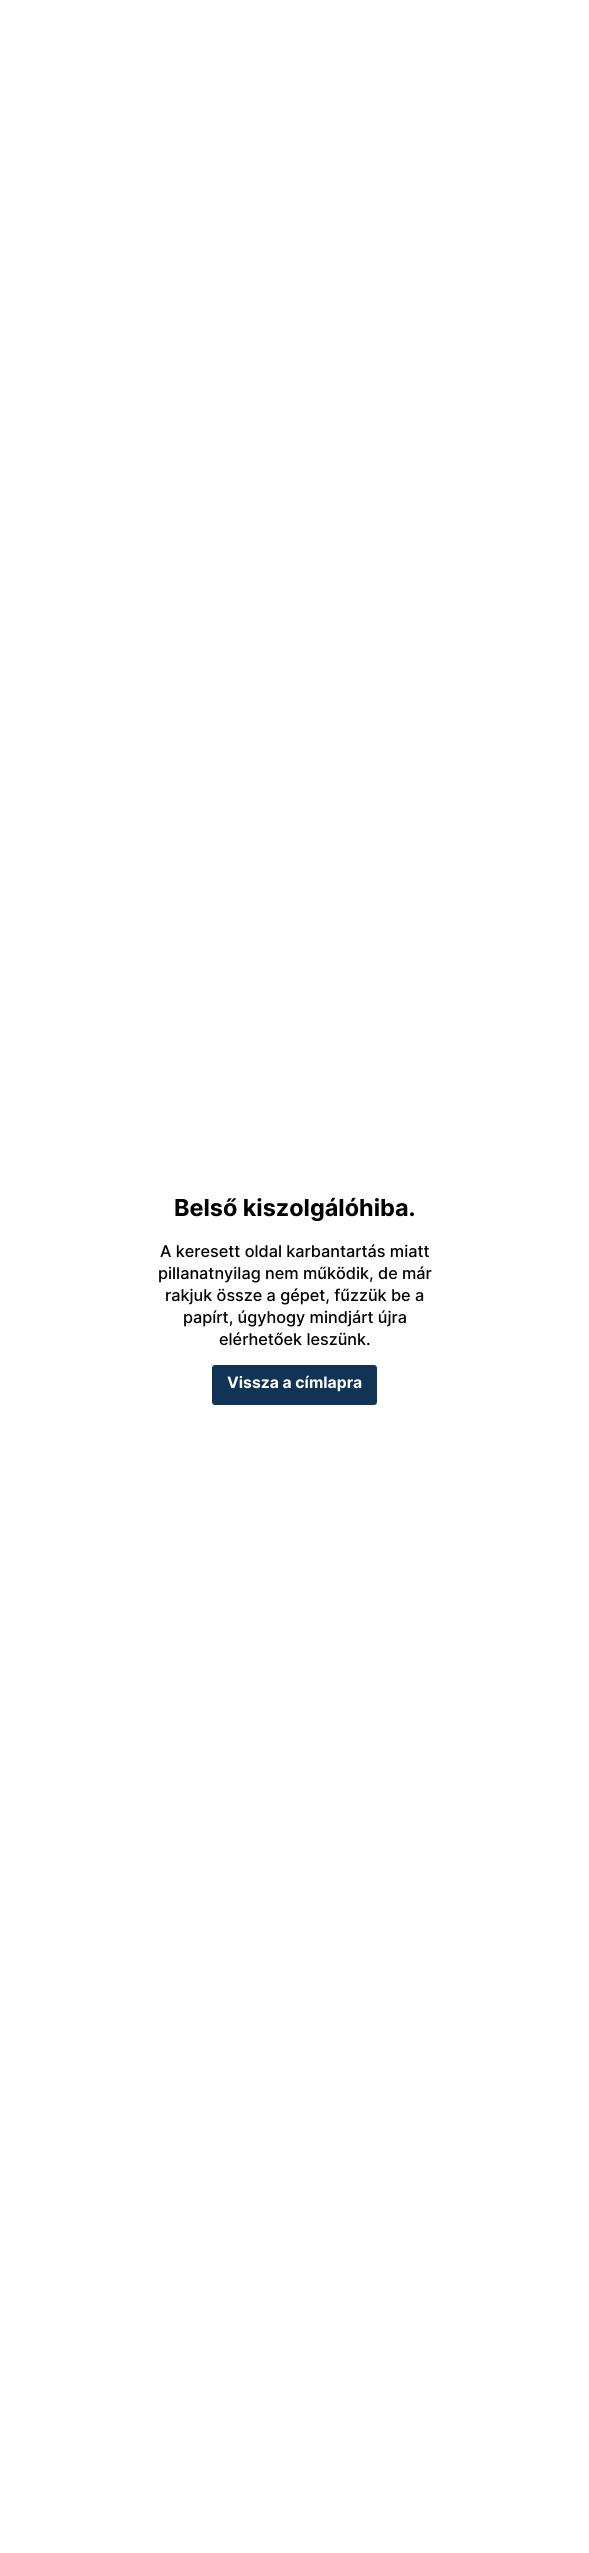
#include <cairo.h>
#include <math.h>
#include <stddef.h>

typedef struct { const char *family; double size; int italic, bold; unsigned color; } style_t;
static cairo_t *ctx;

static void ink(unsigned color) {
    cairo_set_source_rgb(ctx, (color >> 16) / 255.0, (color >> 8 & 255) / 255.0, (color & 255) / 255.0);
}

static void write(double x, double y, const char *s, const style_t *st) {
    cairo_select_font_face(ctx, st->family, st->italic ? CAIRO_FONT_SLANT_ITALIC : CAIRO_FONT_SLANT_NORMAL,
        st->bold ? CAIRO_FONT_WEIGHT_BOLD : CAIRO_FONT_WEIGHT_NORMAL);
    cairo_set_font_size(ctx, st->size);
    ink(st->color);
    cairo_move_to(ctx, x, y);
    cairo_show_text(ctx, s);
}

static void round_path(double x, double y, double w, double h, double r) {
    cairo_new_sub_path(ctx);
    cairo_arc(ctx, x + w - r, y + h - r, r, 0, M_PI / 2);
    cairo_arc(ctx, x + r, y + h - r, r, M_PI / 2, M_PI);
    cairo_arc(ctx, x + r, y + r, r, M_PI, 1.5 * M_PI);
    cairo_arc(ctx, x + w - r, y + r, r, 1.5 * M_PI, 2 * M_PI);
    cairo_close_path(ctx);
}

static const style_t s1 = {"Inter", 23.4, 0, 1, 0x000000};
static const style_t s2 = {"Inter Medium", 16.25, 0, 0, 0x000000};
static const style_t s3 = {"Inter", 15.75, 0, 1, 0xffffff};

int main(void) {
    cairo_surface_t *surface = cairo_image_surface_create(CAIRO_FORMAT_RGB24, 589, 2553);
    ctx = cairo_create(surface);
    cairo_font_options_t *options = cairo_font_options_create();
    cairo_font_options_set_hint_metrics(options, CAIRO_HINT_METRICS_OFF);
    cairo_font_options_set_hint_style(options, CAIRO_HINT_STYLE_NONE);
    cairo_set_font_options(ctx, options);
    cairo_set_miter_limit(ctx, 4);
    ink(0xffffff);
    cairo_paint(ctx);
    write(174, 1216, "Belső kiszolgálóhiba.", &s1);
    write(160, 1257, "A keresett oldal karbantartás miatt", &s2);
    write(158, 1279, "pillanatnyilag nem működik, de már", &s2);
    write(165, 1301, "rakjuk össze a gépet, fűzzük be a", &s2);
    write(183, 1323, "papírt, úgyhogy mindjárt újra", &s2);
    write(219, 1345, "elérhetőek leszünk.", &s2);
    ink(0x113355);
    round_path(212, 1365, 165, 40, 3);
    cairo_fill(ctx);
    write(227, 1388, "Vissza a címlapra", &s3);
    cairo_surface_write_to_png(surface, "screenshot.png");
    cairo_font_options_destroy(options);
    cairo_destroy(ctx);
    cairo_surface_destroy(surface);
    return 0;
}
